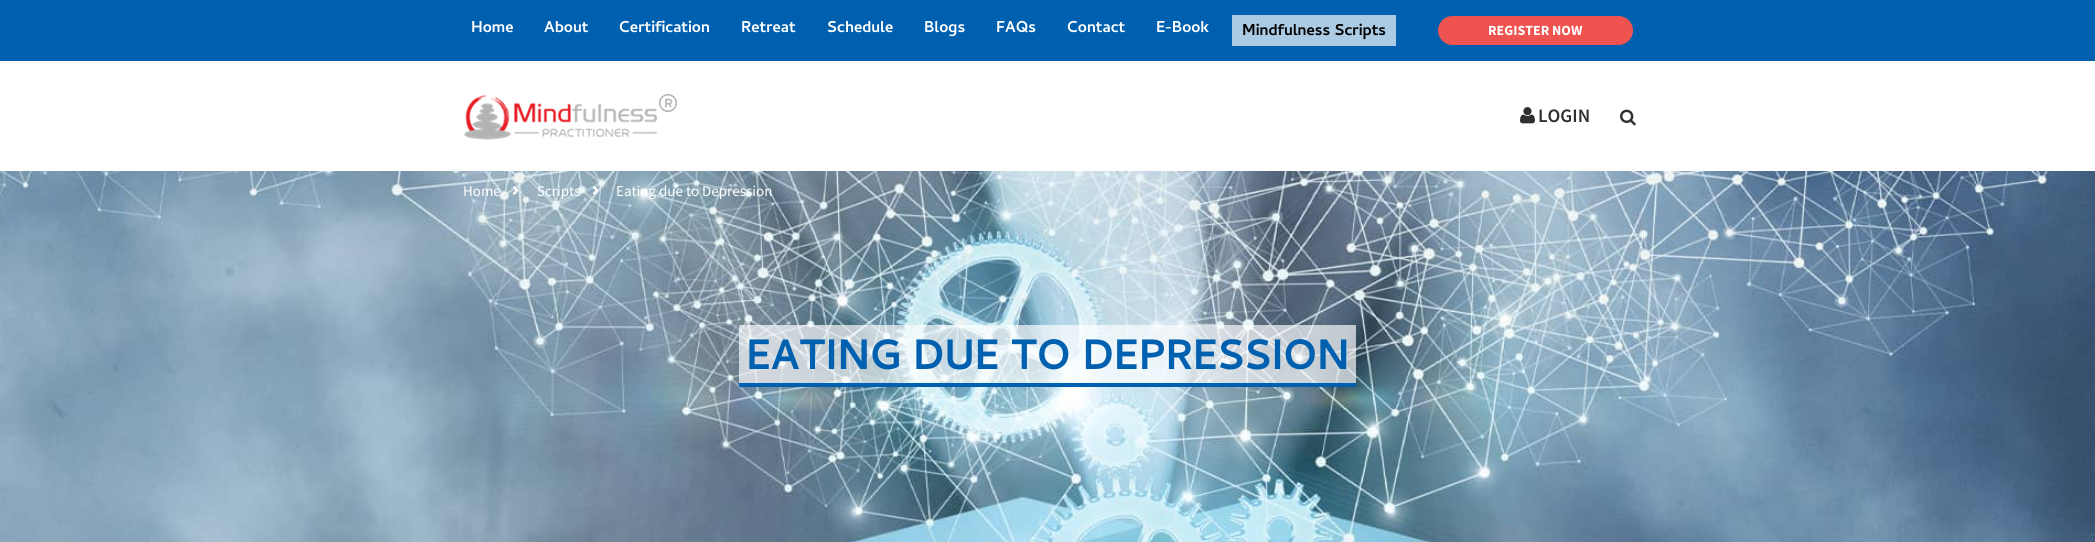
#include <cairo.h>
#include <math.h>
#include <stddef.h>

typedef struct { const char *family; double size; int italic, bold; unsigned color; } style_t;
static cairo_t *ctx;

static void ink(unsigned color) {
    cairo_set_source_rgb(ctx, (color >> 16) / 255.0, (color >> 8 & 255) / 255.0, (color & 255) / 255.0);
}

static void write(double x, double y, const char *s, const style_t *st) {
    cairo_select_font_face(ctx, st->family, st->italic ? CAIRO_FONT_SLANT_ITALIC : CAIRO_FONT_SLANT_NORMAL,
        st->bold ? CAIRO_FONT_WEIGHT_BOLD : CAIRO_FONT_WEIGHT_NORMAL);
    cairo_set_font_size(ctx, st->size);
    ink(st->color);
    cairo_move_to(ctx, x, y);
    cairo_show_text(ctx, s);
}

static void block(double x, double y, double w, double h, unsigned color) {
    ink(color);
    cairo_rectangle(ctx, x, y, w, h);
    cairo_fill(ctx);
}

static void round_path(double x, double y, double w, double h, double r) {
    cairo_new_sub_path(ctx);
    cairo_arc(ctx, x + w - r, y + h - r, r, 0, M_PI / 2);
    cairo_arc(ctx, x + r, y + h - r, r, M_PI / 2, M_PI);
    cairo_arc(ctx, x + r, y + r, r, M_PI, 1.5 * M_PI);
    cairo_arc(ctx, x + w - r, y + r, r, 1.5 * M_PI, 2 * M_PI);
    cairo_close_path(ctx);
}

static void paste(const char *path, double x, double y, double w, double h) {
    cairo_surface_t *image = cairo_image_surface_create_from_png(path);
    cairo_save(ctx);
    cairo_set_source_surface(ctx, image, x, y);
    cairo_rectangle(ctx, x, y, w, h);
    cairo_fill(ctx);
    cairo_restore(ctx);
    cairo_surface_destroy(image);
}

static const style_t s1 = {"Cambay", 16, 0, 1, 0xffffff};
static const style_t s2 = {"Cambay", 16, 0, 1, 0x000000};
static const style_t s3 = {"Source Sans Pro", 14, 0, 1, 0xffffff};
static const style_t s4 = {"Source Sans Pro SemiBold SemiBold", 19, 0, 0, 0x2f2f2f};
static const style_t s5 = {"Source Sans Pro", 15, 0, 0, 0xffffff};
static const style_t s6 = {"Cambay", 43, 0, 1, 0x0060b0};

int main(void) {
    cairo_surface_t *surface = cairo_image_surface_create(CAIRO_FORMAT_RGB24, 2095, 542);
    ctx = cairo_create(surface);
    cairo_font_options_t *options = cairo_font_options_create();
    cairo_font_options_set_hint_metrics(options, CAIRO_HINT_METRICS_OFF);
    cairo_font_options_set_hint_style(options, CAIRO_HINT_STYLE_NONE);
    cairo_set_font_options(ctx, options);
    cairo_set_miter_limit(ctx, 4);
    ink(0xffffff);
    cairo_paint(ctx);
    block(0, 0, 2095, 61, 0x0060b0);
    write(471, 32, "Home", &s1);
    write(544, 32, "About", &s1);
    write(619, 32, "Certification", &s1);
    write(741, 32, "Retreat", &s1);
    write(827, 32, "Schedule", &s1);
    write(924, 32, "Blogs", &s1);
    write(996, 32, "FAQs", &s1);
    write(1067, 32, "Contact", &s1);
    write(1156, 32, "E-Book", &s1);
    block(1232, 15, 164, 31, 0xabcbe5);
    write(1242, 35, "Mindfulness Scripts", &s2);
    ink(0xef5350);
    round_path(1438, 16, 195, 29, 14.5);
    cairo_fill(ctx);
    write(1488, 35, "REGISTER NOW", &s3);
    paste("pic1.png", 464, 94, 213, 46);
    paste("pic2.png", 1520, 107, 15, 17);
    write(1538, 122, "LOGIN", &s4);
    paste("pic3.png", 1620, 109, 16, 17);
    paste("pic4.png", 0, 171, 2095, 371);
    write(463, 196, "Home", &s5);
    paste("pic5.png", 512, 186, 7, 9);
    write(537, 196, "Scripts", &s5);
    paste("pic6.png", 592, 186, 7, 9);
    write(616, 196, "Eating due to Depression", &s5);
    cairo_set_source_rgba(ctx, 1, 1, 1, 0.67);
    cairo_rectangle(ctx, 739, 325, 617, 58);
    cairo_fill(ctx);
    block(739, 383, 617, 4, 0x0060b0);
    write(746, 369, "EATING DUE TO DEPRESSION", &s6);
    cairo_surface_write_to_png(surface, "screenshot.png");
    cairo_font_options_destroy(options);
    cairo_destroy(ctx);
    cairo_surface_destroy(surface);
    return 0;
}
